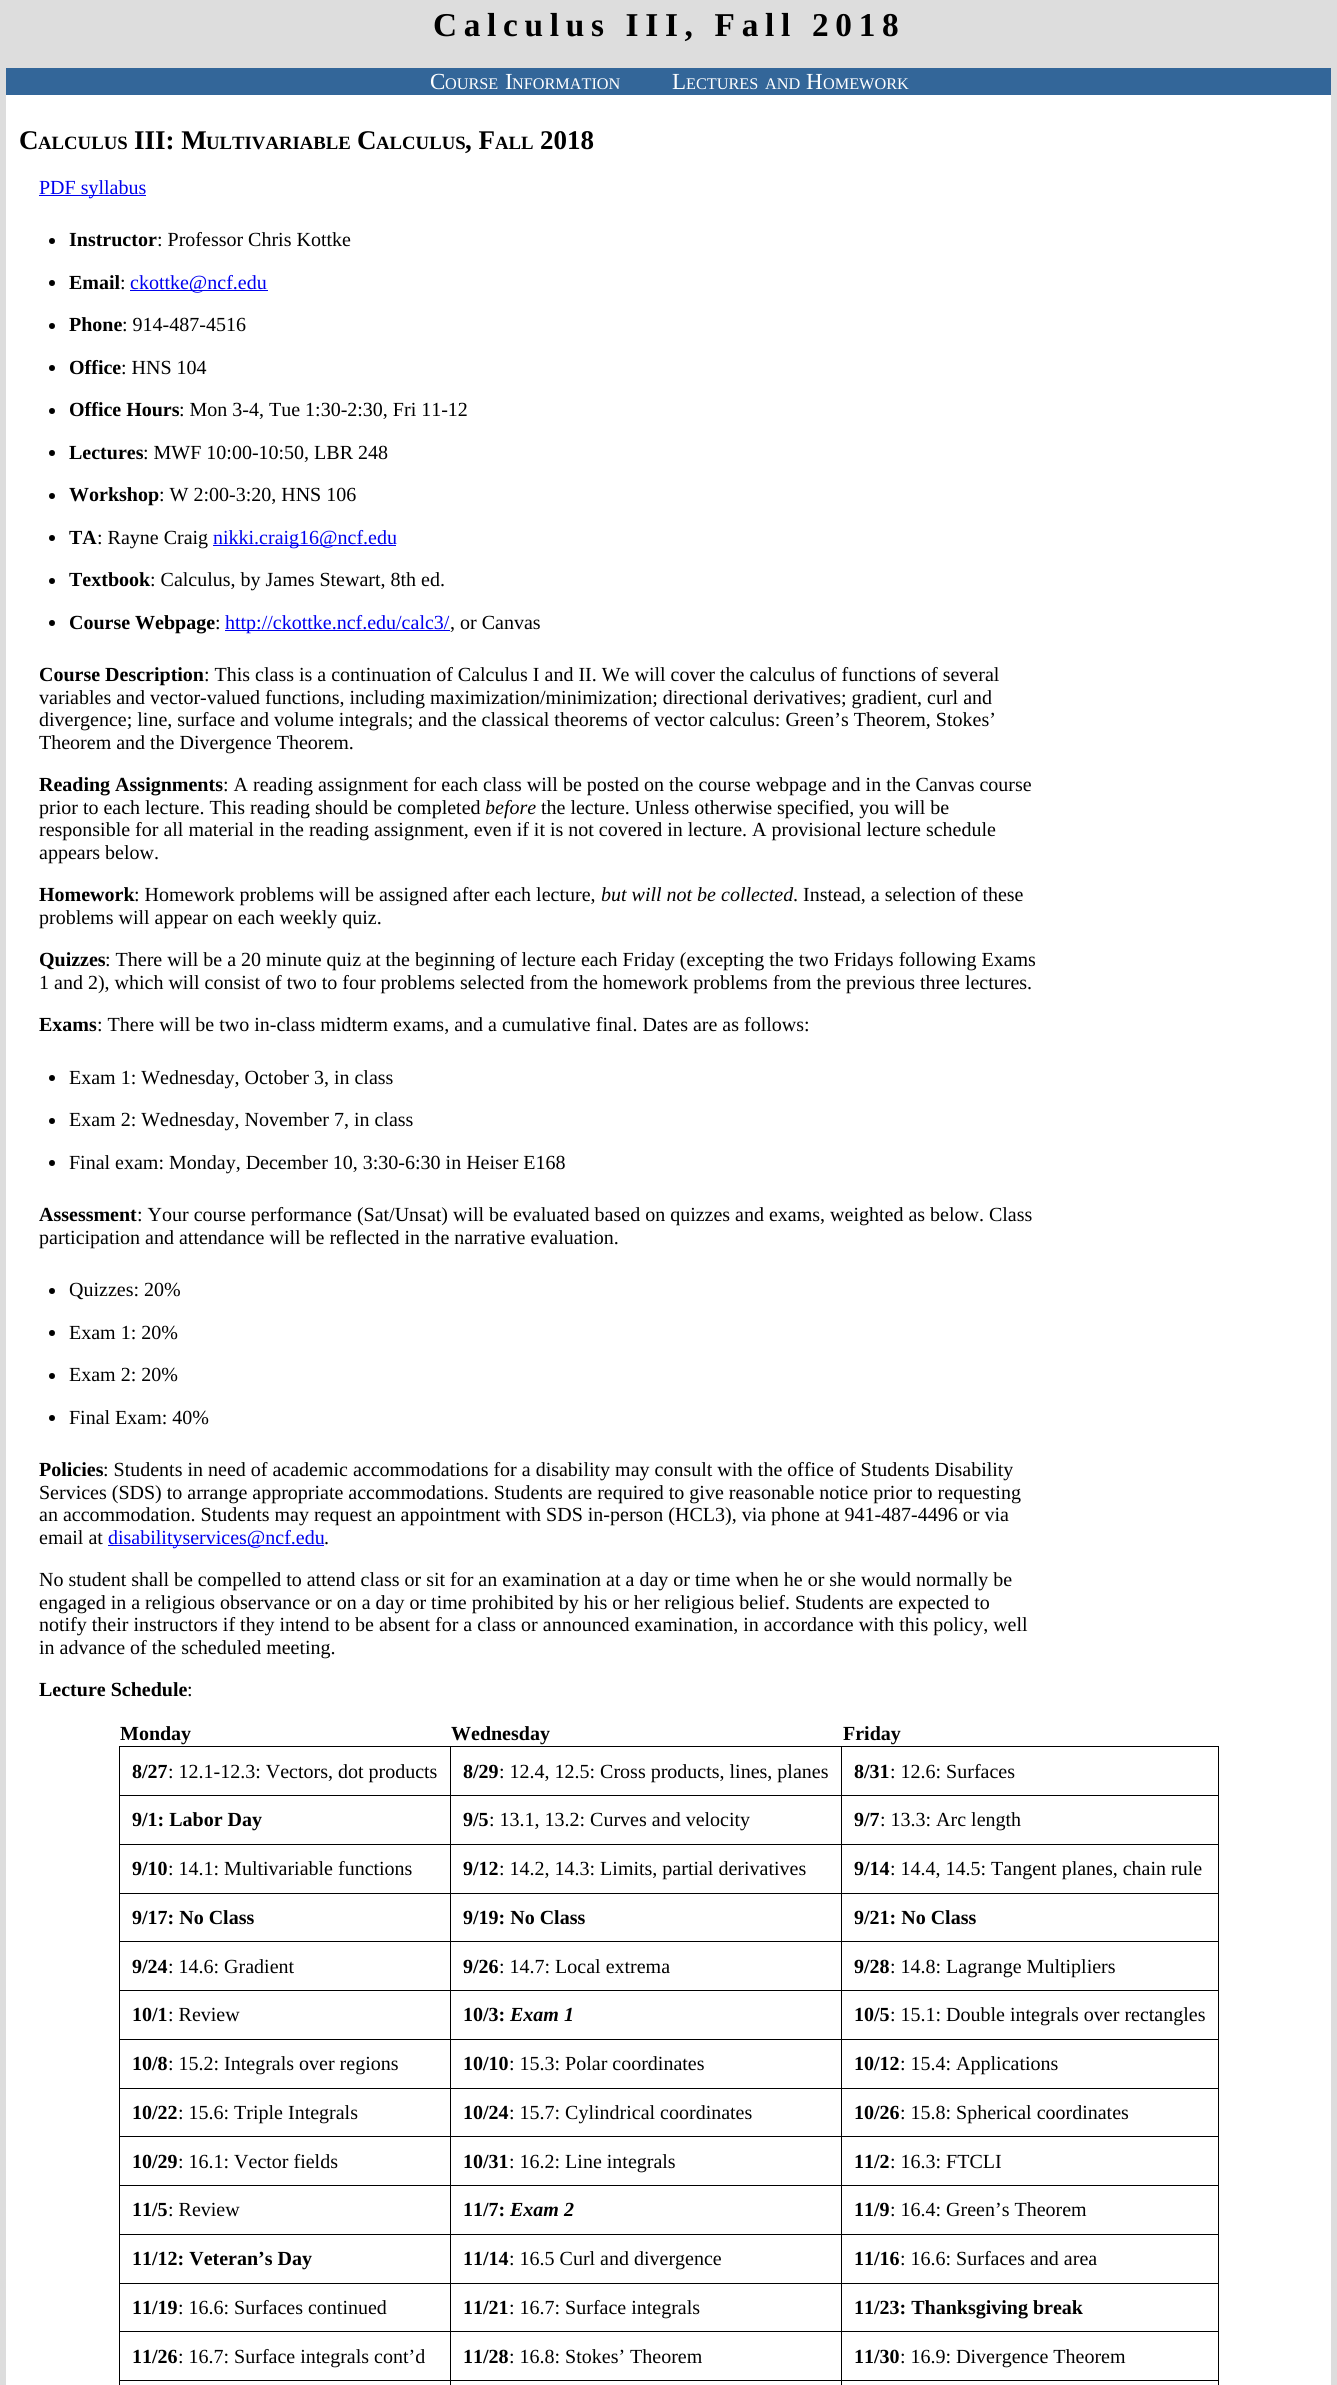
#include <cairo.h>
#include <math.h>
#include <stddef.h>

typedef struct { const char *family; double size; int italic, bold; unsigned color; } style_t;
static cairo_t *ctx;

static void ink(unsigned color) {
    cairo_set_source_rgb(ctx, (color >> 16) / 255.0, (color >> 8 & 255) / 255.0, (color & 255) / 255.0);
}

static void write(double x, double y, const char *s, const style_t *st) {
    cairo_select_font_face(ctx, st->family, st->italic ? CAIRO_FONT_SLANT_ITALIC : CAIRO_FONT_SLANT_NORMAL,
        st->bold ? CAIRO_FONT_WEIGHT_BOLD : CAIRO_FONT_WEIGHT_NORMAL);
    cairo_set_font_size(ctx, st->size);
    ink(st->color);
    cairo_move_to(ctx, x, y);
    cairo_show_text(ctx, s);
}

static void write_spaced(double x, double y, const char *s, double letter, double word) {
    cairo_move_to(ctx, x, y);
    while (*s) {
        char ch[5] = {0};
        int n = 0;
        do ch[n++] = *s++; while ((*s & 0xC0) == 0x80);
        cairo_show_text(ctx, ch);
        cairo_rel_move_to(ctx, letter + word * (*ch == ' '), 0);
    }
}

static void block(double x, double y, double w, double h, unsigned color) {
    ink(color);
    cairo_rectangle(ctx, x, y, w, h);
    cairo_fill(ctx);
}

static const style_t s1 = {"Liberation Serif", 23, 0, 0, 0xffffff};
static const style_t s2 = {"Liberation Serif", 16.25, 0, 0, 0xffffff};
static const style_t s3 = {"Liberation Serif", 27, 0, 1, 0x000000};
static const style_t s4 = {"Liberation Serif", 18.75, 0, 1, 0x000000};
static const style_t s5 = {"Liberation Serif", 20, 0, 0, 0x0000ee};
static const style_t s6 = {"Liberation Serif", 20, 0, 1, 0x000000};
static const style_t s7 = {"Liberation Serif", 20, 0, 0, 0x000000};
static const style_t s8 = {"Liberation Serif", 20, 1, 0, 0x000000};
static const style_t s9 = {"Liberation Serif", 20, 1, 1, 0x000000};

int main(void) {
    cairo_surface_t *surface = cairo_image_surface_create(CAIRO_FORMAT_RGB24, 1337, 2385);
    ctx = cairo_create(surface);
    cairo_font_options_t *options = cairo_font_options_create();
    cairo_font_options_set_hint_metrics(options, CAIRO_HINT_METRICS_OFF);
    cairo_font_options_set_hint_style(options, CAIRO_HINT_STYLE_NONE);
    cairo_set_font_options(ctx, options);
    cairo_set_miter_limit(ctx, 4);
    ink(0xdddddd);
    cairo_paint(ctx);
    cairo_select_font_face(ctx, "Liberation Serif", CAIRO_FONT_SLANT_NORMAL, CAIRO_FONT_WEIGHT_BOLD);
    cairo_set_font_size(ctx, 33.3);
    ink(0x000000);
    write_spaced(433, 36, "Calculus III, Fall 2018", 6.7, 0);
    block(6, 68, 1325, 27, 0x336699);
    write(430, 89, "C", &s1);
    write(445, 89, "OURSE", &s2);
    write(505, 89, "I", &s1);
    write(512, 89, "NFORMATION", &s2);
    write(672, 89, "L", &s1);
    write(686, 89, "ECTURES", &s2);
    write(765, 89, "AND", &s2);
    write(806, 89, "H", &s1);
    write(823, 89, "OMEWORK", &s2);
    block(6, 95, 1325, 2290, 0xffffff);
    write(19, 149, "C", &s3);
    write(38, 149, "ALCULUS", &s4);
    write(134, 149, "III: M", &s3);
    write(206, 149, "ULTIVARIABLE", &s4);
    write(357, 149, "C", &s3);
    write(376, 149, "ALCULUS", &s4);
    write(465, 149, ", F", &s3);
    write(495, 149, "ALL", &s4);
    write(540, 149, "2018", &s3);
    block(39, 195, 107, 1, 0x0000ee);
    write(39, 194, "PDF syllabus", &s5);
    ink(0x000000);
    cairo_new_path(ctx);
    cairo_arc(ctx, 52, 241, 3, 0, 2 * M_PI);
    cairo_fill(ctx);
    write(69, 246, "Instructor", &s6);
    write(157, 246, ": Professor Chris Kottke", &s7);
    cairo_new_path(ctx);
    cairo_arc(ctx, 52, 283, 3, 0, 2 * M_PI);
    cairo_fill(ctx);
    write(69, 289, "Email", &s6);
    write(120, 289, ":", &s7);
    block(130, 290, 138, 1, 0x0000ee);
    write(130, 289, "ckottke@ncf.edu", &s5);
    ink(0x000000);
    cairo_new_path(ctx);
    cairo_arc(ctx, 52, 326, 3, 0, 2 * M_PI);
    cairo_fill(ctx);
    write(69, 331, "Phone", &s6);
    write(122, 331, ": 914-487-4516", &s7);
    cairo_new_path(ctx);
    cairo_arc(ctx, 52, 368, 3, 0, 2 * M_PI);
    cairo_fill(ctx);
    write(69, 374, "Office", &s6);
    write(121, 374, ": HNS 104", &s7);
    cairo_new_path(ctx);
    cairo_arc(ctx, 52, 411, 3, 0, 2 * M_PI);
    cairo_fill(ctx);
    write(69, 416, "Office Hours", &s6);
    write(179, 416, ": Mon 3-4, Tue 1:30-2:30, Fri 11-12", &s7);
    cairo_new_path(ctx);
    cairo_arc(ctx, 52, 453, 3, 0, 2 * M_PI);
    cairo_fill(ctx);
    write(69, 459, "Lectures", &s6);
    write(143, 459, ": MWF 10:00-10:50, LBR 248", &s7);
    cairo_new_path(ctx);
    cairo_arc(ctx, 52, 496, 3, 0, 2 * M_PI);
    cairo_fill(ctx);
    write(69, 501, "Workshop", &s6);
    write(159, 501, ": W 2:00-3:20, HNS 106", &s7);
    cairo_new_path(ctx);
    cairo_arc(ctx, 52, 538, 3, 0, 2 * M_PI);
    cairo_fill(ctx);
    write(69, 544, "TA", &s6);
    write(97, 544, ": Rayne Craig", &s7);
    block(213, 545, 183, 1, 0x0000ee);
    write(213, 544, "nikki.craig16@ncf.edu", &s5);
    ink(0x000000);
    cairo_new_path(ctx);
    cairo_arc(ctx, 52, 581, 3, 0, 2 * M_PI);
    cairo_fill(ctx);
    write(69, 586, "Textbook", &s6);
    write(150, 586, ": Calculus, by James Stewart, 8th ed.", &s7);
    cairo_new_path(ctx);
    cairo_arc(ctx, 52, 623, 3, 0, 2 * M_PI);
    cairo_fill(ctx);
    write(69, 629, "Course Webpage", &s6);
    write(215, 629, ":", &s7);
    block(225, 630, 225, 1, 0x0000ee);
    write(225, 629, "http://ckottke.ncf.edu/calc3/", &s5);
    write(450, 629, ", or Canvas", &s7);
    write(39, 681, "Course Description", &s6);
    write(204, 681, ": This class is a continuation of Calculus I and II. We will cover the calculus of functions of several", &s7);
    write(39, 704, "variables and vector-valued functions, including maximization/minimization; directional derivatives; gradient, curl and", &s7);
    write(39, 726, "divergence; line, surface and volume integrals; and the classical theorems of vector calculus: Green’s Theorem, Stokes’", &s7);
    write(39, 749, "Theorem and the Divergence Theorem.", &s7);
    write(39, 791, "Reading Assignments", &s6);
    write(223, 791, ": A reading assignment for each class will be posted on the course webpage and in the Canvas course", &s7);
    write(39, 814, "prior to each lecture. This reading should be completed", &s7);
    write(485, 814, "before", &s8);
    write(541, 814, "the lecture. Unless otherwise specified, you will be", &s7);
    write(39, 836, "responsible for all material in the reading assignment, even if it is not covered in lecture. A provisional lecture schedule", &s7);
    write(39, 859, "appears below.", &s7);
    write(39, 901, "Homework", &s6);
    write(134, 901, ": Homework problems will be assigned after each lecture,", &s7);
    write(601, 901, "but will not be collected", &s8);
    write(793, 901, ". Instead, a selection of these", &s7);
    write(39, 924, "problems will appear on each weekly quiz.", &s7);
    write(39, 966, "Quizzes", &s6);
    write(105, 966, ": There will be a 20 minute quiz at the beginning of lecture each Friday (excepting the two Fridays following Exams", &s7);
    write(39, 989, "1 and 2), which will consist of two to four problems selected from the homework problems from the previous three lectures.", &s7);
    write(39, 1031, "Exams", &s6);
    write(97, 1031, ": There will be two in-class midterm exams, and a cumulative final. Dates are as follows:", &s7);
    cairo_new_path(ctx);
    cairo_arc(ctx, 52, 1078, 3, 0, 2 * M_PI);
    cairo_fill(ctx);
    write(69, 1084, "Exam 1: Wednesday, October 3, in class", &s7);
    cairo_new_path(ctx);
    cairo_arc(ctx, 52, 1121, 3, 0, 2 * M_PI);
    cairo_fill(ctx);
    write(69, 1126, "Exam 2: Wednesday, November 7, in class", &s7);
    cairo_new_path(ctx);
    cairo_arc(ctx, 52, 1163, 3, 0, 2 * M_PI);
    cairo_fill(ctx);
    write(69, 1169, "Final exam: Monday, December 10, 3:30-6:30 in Heiser E168", &s7);
    write(39, 1221, "Assessment", &s6);
    write(137, 1221, ": Your course performance (Sat/Unsat) will be evaluated based on quizzes and exams, weighted as below. Class", &s7);
    write(39, 1244, "participation and attendance will be reflected in the narrative evaluation.", &s7);
    cairo_new_path(ctx);
    cairo_arc(ctx, 52, 1291, 3, 0, 2 * M_PI);
    cairo_fill(ctx);
    write(69, 1296, "Quizzes: 20%", &s7);
    cairo_new_path(ctx);
    cairo_arc(ctx, 52, 1333, 3, 0, 2 * M_PI);
    cairo_fill(ctx);
    write(69, 1339, "Exam 1: 20%", &s7);
    cairo_new_path(ctx);
    cairo_arc(ctx, 52, 1376, 3, 0, 2 * M_PI);
    cairo_fill(ctx);
    write(69, 1381, "Exam 2: 20%", &s7);
    cairo_new_path(ctx);
    cairo_arc(ctx, 52, 1418, 3, 0, 2 * M_PI);
    cairo_fill(ctx);
    write(69, 1424, "Final Exam: 40%", &s7);
    write(39, 1476, "Policies", &s6);
    write(103, 1476, ": Students in need of academic accommodations for a disability may consult with the office of Students Disability", &s7);
    write(39, 1499, "Services (SDS) to arrange appropriate accommodations. Students are required to give reasonable notice prior to requesting", &s7);
    write(39, 1521, "an accommodation. Students may request an appointment with SDS in-person (HCL3), via phone at 941-487-4496 or via", &s7);
    write(39, 1544, "email at", &s7);
    block(108, 1545, 216, 1, 0x0000ee);
    write(108, 1544, "disabilityservices@ncf.edu", &s5);
    write(324, 1544, ".", &s7);
    write(39, 1586, "No student shall be compelled to attend class or sit for an examination at a day or time when he or she would normally be", &s7);
    write(39, 1609, "engaged in a religious observance or on a day or time prohibited by his or her religious belief. Students are expected to", &s7);
    write(39, 1631, "notify their instructors if they intend to be absent for a class or announced examination, in accordance with this policy, well", &s7);
    write(39, 1654, "in advance of the scheduled meeting.", &s7);
    write(39, 1696, "Lecture Schedule", &s6);
    write(187, 1696, ":", &s7);
    write(120, 1740, "Monday", &s6);
    write(451, 1740, "Wednesday", &s6);
    write(843, 1740, "Friday", &s6);
    block(841, 1746, 378, 1, 0x000000);
    block(841, 1795, 378, 1, 0x000000);
    block(841, 1844, 378, 1, 0x000000);
    block(841, 1893, 378, 1, 0x000000);
    block(841, 1941, 378, 1, 0x000000);
    block(841, 1990, 378, 1, 0x000000);
    block(841, 2039, 378, 1, 0x000000);
    block(841, 2088, 378, 1, 0x000000);
    block(841, 2136, 378, 1, 0x000000);
    block(841, 2185, 378, 1, 0x000000);
    block(841, 2234, 378, 1, 0x000000);
    block(841, 2283, 378, 1, 0x000000);
    block(841, 2331, 378, 1, 0x000000);
    block(841, 2380, 378, 1, 0x000000);
    block(841, 2380, 1, 5, 0x000000);
    block(450, 2380, 393, 1, 0x000000);
    block(841, 2331, 1, 50, 0x000000);
    block(450, 2331, 393, 1, 0x000000);
    block(841, 2283, 1, 50, 0x000000);
    block(450, 2283, 393, 1, 0x000000);
    block(841, 2234, 1, 50, 0x000000);
    block(450, 2234, 393, 1, 0x000000);
    block(841, 2185, 1, 50, 0x000000);
    block(450, 2185, 393, 1, 0x000000);
    block(841, 2136, 1, 50, 0x000000);
    block(450, 2136, 393, 1, 0x000000);
    block(841, 2088, 1, 50, 0x000000);
    block(450, 2088, 393, 1, 0x000000);
    block(841, 2039, 1, 50, 0x000000);
    block(450, 2039, 393, 1, 0x000000);
    block(841, 1990, 1, 50, 0x000000);
    block(450, 1990, 393, 1, 0x000000);
    block(841, 1941, 1, 50, 0x000000);
    block(450, 1941, 393, 1, 0x000000);
    block(841, 1893, 1, 50, 0x000000);
    block(450, 1893, 393, 1, 0x000000);
    block(841, 1844, 1, 50, 0x000000);
    block(450, 1844, 393, 1, 0x000000);
    block(841, 1795, 1, 50, 0x000000);
    block(450, 1795, 393, 1, 0x000000);
    block(841, 1746, 1, 50, 0x000000);
    block(450, 1746, 393, 1, 0x000000);
    block(450, 2380, 1, 5, 0x000000);
    block(119, 2380, 332, 1, 0x000000);
    block(450, 2331, 1, 50, 0x000000);
    block(119, 2331, 332, 1, 0x000000);
    block(450, 2283, 1, 50, 0x000000);
    block(119, 2283, 332, 1, 0x000000);
    block(450, 2234, 1, 50, 0x000000);
    block(119, 2234, 332, 1, 0x000000);
    block(450, 2185, 1, 50, 0x000000);
    block(119, 2185, 332, 1, 0x000000);
    block(450, 2136, 1, 50, 0x000000);
    block(119, 2136, 332, 1, 0x000000);
    block(450, 2088, 1, 50, 0x000000);
    block(119, 2088, 332, 1, 0x000000);
    block(450, 2039, 1, 50, 0x000000);
    block(119, 2039, 332, 1, 0x000000);
    block(450, 1990, 1, 50, 0x000000);
    block(119, 1990, 332, 1, 0x000000);
    block(450, 1941, 1, 50, 0x000000);
    block(119, 1941, 332, 1, 0x000000);
    block(450, 1893, 1, 50, 0x000000);
    block(119, 1893, 332, 1, 0x000000);
    block(450, 1844, 1, 50, 0x000000);
    block(119, 1844, 332, 1, 0x000000);
    block(450, 1795, 1, 50, 0x000000);
    block(119, 1795, 332, 1, 0x000000);
    block(450, 1746, 1, 50, 0x000000);
    block(119, 1746, 332, 1, 0x000000);
    block(119, 2380, 1, 5, 0x000000);
    block(119, 2331, 1, 50, 0x000000);
    block(119, 2283, 1, 50, 0x000000);
    block(119, 2234, 1, 50, 0x000000);
    block(119, 2185, 1, 50, 0x000000);
    block(119, 2136, 1, 50, 0x000000);
    block(119, 2088, 1, 50, 0x000000);
    block(119, 2039, 1, 50, 0x000000);
    block(119, 1990, 1, 50, 0x000000);
    block(119, 1941, 1, 50, 0x000000);
    block(119, 1893, 1, 50, 0x000000);
    block(119, 1844, 1, 50, 0x000000);
    block(119, 1795, 1, 50, 0x000000);
    block(119, 1746, 1, 50, 0x000000);
    write(132, 1778, "8/27", &s6);
    write(168, 1778, ": 12.1-12.3: Vectors, dot products", &s7);
    write(463, 1778, "8/29", &s6);
    write(499, 1778, ": 12.4, 12.5: Cross products, lines, planes", &s7);
    block(1218, 2380, 1, 5, 0x000000);
    block(1218, 2331, 1, 50, 0x000000);
    block(1218, 2283, 1, 50, 0x000000);
    block(1218, 2234, 1, 50, 0x000000);
    block(1218, 2185, 1, 50, 0x000000);
    block(1218, 2136, 1, 50, 0x000000);
    block(1218, 2088, 1, 50, 0x000000);
    block(1218, 2039, 1, 50, 0x000000);
    block(1218, 1990, 1, 50, 0x000000);
    block(1218, 1941, 1, 50, 0x000000);
    block(1218, 1893, 1, 50, 0x000000);
    block(1218, 1844, 1, 50, 0x000000);
    block(1218, 1795, 1, 50, 0x000000);
    block(1218, 1746, 1, 50, 0x000000);
    write(854, 1778, "8/31", &s6);
    write(890, 1778, ": 12.6: Surfaces", &s7);
    write(132, 1826, "9/1: Labor Day", &s6);
    write(463, 1826, "9/5", &s6);
    write(489, 1826, ": 13.1, 13.2: Curves and velocity", &s7);
    write(854, 1826, "9/7", &s6);
    write(880, 1826, ": 13.3: Arc length", &s7);
    write(132, 1875, "9/10", &s6);
    write(168, 1875, ": 14.1: Multivariable functions", &s7);
    write(463, 1875, "9/12", &s6);
    write(499, 1875, ": 14.2, 14.3: Limits, partial derivatives", &s7);
    write(854, 1875, "9/14", &s6);
    write(890, 1875, ": 14.4, 14.5: Tangent planes, chain rule", &s7);
    write(132, 1924, "9/17: No Class", &s6);
    write(463, 1924, "9/19: No Class", &s6);
    write(854, 1924, "9/21: No Class", &s6);
    write(132, 1973, "9/24", &s6);
    write(168, 1973, ": 14.6: Gradient", &s7);
    write(463, 1973, "9/26", &s6);
    write(499, 1973, ": 14.7: Local extrema", &s7);
    write(854, 1973, "9/28", &s6);
    write(890, 1973, ": 14.8: Lagrange Multipliers", &s7);
    write(132, 2021, "10/1", &s6);
    write(168, 2021, ": Review", &s7);
    write(463, 2021, "10/3:", &s6);
    write(510, 2021, "Exam 1", &s9);
    write(854, 2021, "10/5", &s6);
    write(890, 2021, ": 15.1: Double integrals over rectangles", &s7);
    write(132, 2070, "10/8", &s6);
    write(168, 2070, ": 15.2: Integrals over regions", &s7);
    write(463, 2070, "10/10", &s6);
    write(509, 2070, ": 15.3: Polar coordinates", &s7);
    write(854, 2070, "10/12", &s6);
    write(900, 2070, ": 15.4: Applications", &s7);
    write(132, 2119, "10/22", &s6);
    write(178, 2119, ": 15.6: Triple Integrals", &s7);
    write(463, 2119, "10/24", &s6);
    write(509, 2119, ": 15.7: Cylindrical coordinates", &s7);
    write(854, 2119, "10/26", &s6);
    write(900, 2119, ": 15.8: Spherical coordinates", &s7);
    write(132, 2168, "10/29", &s6);
    write(178, 2168, ": 16.1: Vector fields", &s7);
    write(463, 2168, "10/31", &s6);
    write(509, 2168, ": 16.2: Line integrals", &s7);
    write(854, 2168, "11/2", &s6);
    write(890, 2168, ": 16.3: FTCLI", &s7);
    write(132, 2216, "11/5", &s6);
    write(168, 2216, ": Review", &s7);
    write(463, 2216, "11/7:", &s6);
    write(510, 2216, "Exam 2", &s9);
    write(854, 2216, "11/9", &s6);
    write(890, 2216, ": 16.4: Green’s Theorem", &s7);
    write(132, 2265, "11/12: Veteran’s Day", &s6);
    write(463, 2265, "11/14", &s6);
    write(509, 2265, ": 16.5 Curl and divergence", &s7);
    write(854, 2265, "11/16", &s6);
    write(900, 2265, ": 16.6: Surfaces and area", &s7);
    write(132, 2314, "11/19", &s6);
    write(178, 2314, ": 16.6: Surfaces continued", &s7);
    write(463, 2314, "11/21", &s6);
    write(509, 2314, ": 16.7: Surface integrals", &s7);
    write(854, 2314, "11/23: Thanksgiving break", &s6);
    write(132, 2363, "11/26", &s6);
    write(178, 2363, ": 16.7: Surface integrals cont’d", &s7);
    write(463, 2363, "11/28", &s6);
    write(509, 2363, ": 16.8: Stokes’ Theorem", &s7);
    write(854, 2363, "11/30", &s6);
    write(900, 2363, ": 16.9: Divergence Theorem", &s7);
    cairo_surface_write_to_png(surface, "screenshot.png");
    cairo_font_options_destroy(options);
    cairo_destroy(ctx);
    cairo_surface_destroy(surface);
    return 0;
}
